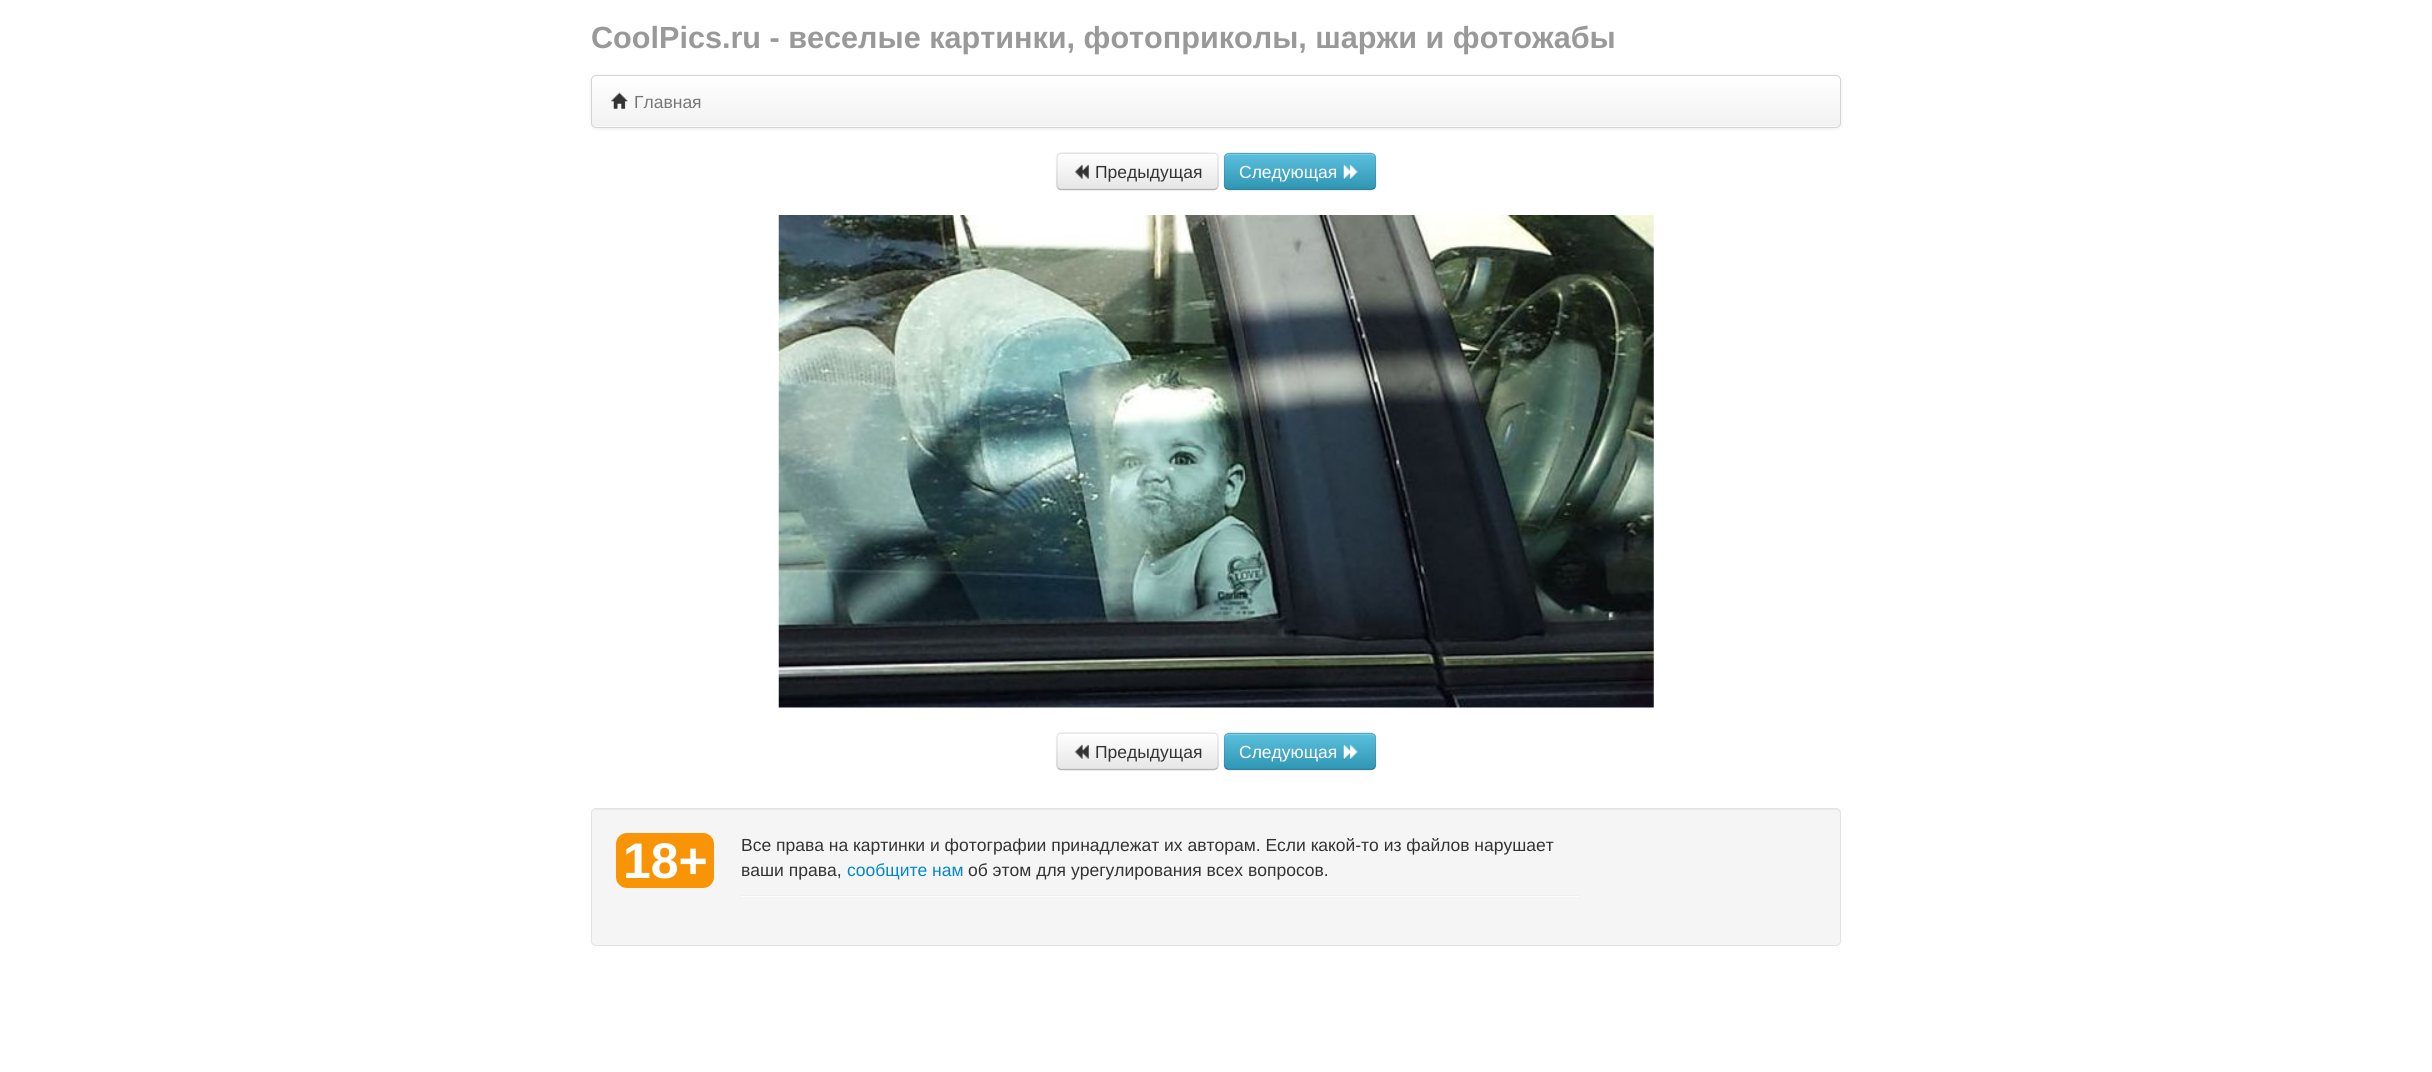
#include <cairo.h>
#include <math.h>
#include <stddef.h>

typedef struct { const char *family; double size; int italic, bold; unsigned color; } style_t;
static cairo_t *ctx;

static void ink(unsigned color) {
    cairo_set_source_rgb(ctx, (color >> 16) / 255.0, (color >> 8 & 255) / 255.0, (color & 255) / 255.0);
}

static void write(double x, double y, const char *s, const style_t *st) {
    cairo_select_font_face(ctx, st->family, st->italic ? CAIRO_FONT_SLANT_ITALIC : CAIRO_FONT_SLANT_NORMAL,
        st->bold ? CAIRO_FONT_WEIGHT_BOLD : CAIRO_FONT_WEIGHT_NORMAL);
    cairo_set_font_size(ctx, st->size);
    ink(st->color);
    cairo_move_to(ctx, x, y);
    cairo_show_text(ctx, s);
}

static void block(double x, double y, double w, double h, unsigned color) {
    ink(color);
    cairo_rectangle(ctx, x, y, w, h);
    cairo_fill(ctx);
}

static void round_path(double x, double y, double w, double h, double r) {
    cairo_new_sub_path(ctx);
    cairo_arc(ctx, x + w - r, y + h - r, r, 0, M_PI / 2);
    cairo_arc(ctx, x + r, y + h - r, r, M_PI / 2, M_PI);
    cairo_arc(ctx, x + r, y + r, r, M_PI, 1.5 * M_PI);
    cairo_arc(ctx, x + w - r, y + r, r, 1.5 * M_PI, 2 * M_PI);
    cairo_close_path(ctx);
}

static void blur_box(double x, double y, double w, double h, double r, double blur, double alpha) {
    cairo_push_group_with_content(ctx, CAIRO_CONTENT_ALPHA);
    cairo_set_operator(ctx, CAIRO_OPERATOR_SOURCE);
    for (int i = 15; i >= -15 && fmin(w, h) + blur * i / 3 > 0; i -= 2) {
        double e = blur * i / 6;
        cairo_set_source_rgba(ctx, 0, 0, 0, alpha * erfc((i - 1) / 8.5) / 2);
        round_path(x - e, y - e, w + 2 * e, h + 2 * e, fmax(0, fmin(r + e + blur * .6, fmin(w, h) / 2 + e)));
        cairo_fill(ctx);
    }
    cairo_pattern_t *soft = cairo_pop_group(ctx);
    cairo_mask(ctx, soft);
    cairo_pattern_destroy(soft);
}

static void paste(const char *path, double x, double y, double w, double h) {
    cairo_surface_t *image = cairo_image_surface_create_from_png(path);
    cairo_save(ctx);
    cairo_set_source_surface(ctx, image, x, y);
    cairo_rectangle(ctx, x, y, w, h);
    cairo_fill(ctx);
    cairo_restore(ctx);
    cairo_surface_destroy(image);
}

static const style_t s1 = {"Liberation Sans", 30.6, 0, 1, 0x999999};
static const style_t s2 = {"Liberation Sans", 17.5, 0, 0, 0x777777};
static const style_t s3 = {"Liberation Sans", 17.5, 0, 0, 0x333333};
static const style_t s4 = {"Liberation Sans", 17.5, 0, 0, 0xffffff};
static const style_t s5 = {"Liberation Sans", 50, 0, 1, 0xffffff};
static const style_t s6 = {"Liberation Sans", 17.5, 0, 0, 0x0088cc};

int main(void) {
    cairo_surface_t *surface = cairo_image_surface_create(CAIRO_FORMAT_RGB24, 2432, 1072);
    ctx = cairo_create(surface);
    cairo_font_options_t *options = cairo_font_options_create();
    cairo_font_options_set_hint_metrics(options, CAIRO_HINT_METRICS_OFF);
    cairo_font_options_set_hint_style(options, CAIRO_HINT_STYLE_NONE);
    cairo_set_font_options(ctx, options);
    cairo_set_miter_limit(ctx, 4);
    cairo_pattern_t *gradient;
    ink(0xffffff);
    cairo_paint(ctx);
    write(591, 48, "CoolPics.ru - веселые картинки, фотоприколы, шаржи и фотожабы", &s1);
    ink(0x000000);
    blur_box(591, 76, 1250, 53, 5, 2.5, 0.07);
    ink(0xfafafa);
    round_path(591, 75, 1250, 53, 5);
    cairo_fill(ctx);
    cairo_save(ctx);
    round_path(591, 75, 1250, 53, 5);
    cairo_clip(ctx);
    gradient = cairo_pattern_create_linear(1216, 76, 1216, 126);
    cairo_pattern_add_color_stop_rgba(gradient, 0, 1, 1, 1, 1);
    cairo_pattern_add_color_stop_rgba(gradient, 1, 0.949, 0.949, 0.949, 1);
    cairo_set_source(ctx, gradient);
    cairo_pattern_destroy(gradient);
    cairo_rectangle(ctx, 591, 76, 1250, 50);
    cairo_fill(ctx);
    cairo_restore(ctx);
    round_path(591.5, 75.5, 1249, 52, 4.5);
    ink(0xd4d4d4);
    cairo_set_line_width(ctx, 1);
    cairo_stroke(ctx);
    paste("pic1.png", 611, 92, 17, 17);
    write(634, 108, "Главная", &s2);
    ink(0x000000);
    blur_box(1056, 154, 163, 37, 5, 1, 0.05);
    ink(0xf5f5f5);
    round_path(1056, 153, 163, 37, 5);
    cairo_fill(ctx);
    cairo_save(ctx);
    round_path(1056, 153, 163, 37, 5);
    cairo_clip(ctx);
    gradient = cairo_pattern_create_linear(1138, 154, 1138, 189);
    cairo_pattern_add_color_stop_rgba(gradient, 0, 1, 1, 1, 1);
    cairo_pattern_add_color_stop_rgba(gradient, 1, 0.902, 0.902, 0.902, 1);
    cairo_set_source(ctx, gradient);
    cairo_pattern_destroy(gradient);
    cairo_rectangle(ctx, 1056, 154, 163, 35);
    cairo_fill(ctx);
    cairo_restore(ctx);
    cairo_new_path(ctx);
    cairo_move_to(ctx, 1217, 188);
    cairo_curve_to(ctx, 1216, 189, 1215, 189.5, 1214, 189.5);
    cairo_line_to(ctx, 1061, 189.5);
    cairo_curve_to(ctx, 1060, 189.5, 1059, 189, 1058, 188);
    ink(0xb3b3b3);
    cairo_set_line_width(ctx, 1.2);
    cairo_stroke(ctx);
    cairo_new_path(ctx);
    cairo_move_to(ctx, 1058, 188);
    cairo_curve_to(ctx, 1057.5, 187.5, 1057, 186, 1057, 185);
    cairo_line_to(ctx, 1057, 157.5);
    cairo_curve_to(ctx, 1057, 156.5, 1057.5, 155, 1058, 154.5);
    cairo_curve_to(ctx, 1059, 153.5, 1060, 153, 1061, 153);
    cairo_line_to(ctx, 1214, 153);
    cairo_curve_to(ctx, 1215, 153, 1216, 153.5, 1217, 154.5);
    cairo_curve_to(ctx, 1217.5, 155, 1218, 156.5, 1218, 157.5);
    cairo_line_to(ctx, 1218, 185);
    cairo_curve_to(ctx, 1218, 186, 1217.5, 187.5, 1217, 188);
    cairo_set_source_rgba(ctx, 0, 0, 0, 0.1);
    cairo_stroke(ctx);
    paste("pic2.png", 1074, 164, 15, 15);
    write(1095, 178, "Предыдущая", &s3);
    ink(0x000000);
    blur_box(1224, 154, 152, 37, 5, 1, 0.05);
    ink(0x49afcd);
    round_path(1224, 153, 152, 37, 5);
    cairo_fill(ctx);
    cairo_save(ctx);
    round_path(1224, 153, 152, 37, 5);
    cairo_clip(ctx);
    gradient = cairo_pattern_create_linear(1300, 154, 1300, 189);
    cairo_pattern_add_color_stop_rgba(gradient, 0, 0.357, 0.753, 0.871, 1);
    cairo_pattern_add_color_stop_rgba(gradient, 1, 0.184, 0.588, 0.706, 1);
    cairo_set_source(ctx, gradient);
    cairo_pattern_destroy(gradient);
    cairo_rectangle(ctx, 1224, 154, 152, 35);
    cairo_fill(ctx);
    cairo_restore(ctx);
    ink(0x7bcce4);
    cairo_new_path(ctx);
    cairo_move_to(ctx, 1229, 155);
    cairo_line_to(ctx, 1371, 155);
    cairo_curve_to(ctx, 1373, 155, 1375, 157, 1375, 159);
    cairo_curve_to(ctx, 1375, 157, 1374, 155, 1372, 154);
    cairo_line_to(ctx, 1229, 154);
    cairo_curve_to(ctx, 1226, 154, 1225, 156, 1225, 159);
    cairo_curve_to(ctx, 1225, 157, 1227, 155, 1229, 155);
    cairo_close_path(ctx);
    cairo_fill(ctx);
    cairo_new_path(ctx);
    cairo_move_to(ctx, 1374.5, 188);
    cairo_curve_to(ctx, 1373.5, 189, 1372.5, 189.5, 1371, 189.5);
    cairo_line_to(ctx, 1229, 189.5);
    cairo_curve_to(ctx, 1227.5, 189.5, 1226.5, 189, 1225.5, 188);
    cairo_set_source_rgba(ctx, 0, 0, 0, 0.25);
    cairo_stroke(ctx);
    cairo_new_path(ctx);
    cairo_move_to(ctx, 1225.5, 188);
    cairo_curve_to(ctx, 1223, 185.5, 1224.5, 179, 1224.5, 176);
    cairo_curve_to(ctx, 1224.5, 147.5, 1220.5, 153, 1252.5, 153);
    cairo_line_to(ctx, 1347.5, 153);
    cairo_curve_to(ctx, 1379.5, 153, 1375.5, 147.5, 1375.5, 176);
    cairo_curve_to(ctx, 1375.5, 179, 1377, 185.5, 1374.5, 188);
    cairo_set_source_rgba(ctx, 0, 0, 0, 0.1);
    cairo_stroke(ctx);
    write(1239, 178, "Следующая", &s4);
    paste("pic3.png", 1343, 164, 15, 16);
    paste("pic4.png", 778, 215, 876, 493);
    ink(0x000000);
    blur_box(1056, 734, 163, 37, 5, 1, 0.05);
    ink(0xf5f5f5);
    round_path(1056, 733, 163, 37, 5);
    cairo_fill(ctx);
    cairo_save(ctx);
    round_path(1056, 733, 163, 37, 5);
    cairo_clip(ctx);
    gradient = cairo_pattern_create_linear(1138, 734, 1138, 769);
    cairo_pattern_add_color_stop_rgba(gradient, 0, 1, 1, 1, 1);
    cairo_pattern_add_color_stop_rgba(gradient, 1, 0.902, 0.902, 0.902, 1);
    cairo_set_source(ctx, gradient);
    cairo_pattern_destroy(gradient);
    cairo_rectangle(ctx, 1056, 734, 163, 35);
    cairo_fill(ctx);
    cairo_restore(ctx);
    cairo_new_path(ctx);
    cairo_move_to(ctx, 1217, 768);
    cairo_curve_to(ctx, 1216, 769, 1215, 769.5, 1214, 769.5);
    cairo_line_to(ctx, 1061, 769.5);
    cairo_curve_to(ctx, 1060, 769.5, 1059, 769, 1058, 768);
    ink(0xb3b3b3);
    cairo_stroke(ctx);
    cairo_new_path(ctx);
    cairo_move_to(ctx, 1058, 768);
    cairo_curve_to(ctx, 1057.5, 767.5, 1057, 766, 1057, 765);
    cairo_line_to(ctx, 1057, 737.5);
    cairo_curve_to(ctx, 1057, 736.5, 1057.5, 735, 1058, 734.5);
    cairo_curve_to(ctx, 1059, 733.5, 1060, 733, 1061, 733);
    cairo_line_to(ctx, 1214, 733);
    cairo_curve_to(ctx, 1215, 733, 1216, 733.5, 1217, 734.5);
    cairo_curve_to(ctx, 1217.5, 735, 1218, 736.5, 1218, 737.5);
    cairo_line_to(ctx, 1218, 765);
    cairo_curve_to(ctx, 1218, 766, 1217.5, 767.5, 1217, 768);
    cairo_set_source_rgba(ctx, 0, 0, 0, 0.1);
    cairo_stroke(ctx);
    paste("pic2.png", 1074, 744, 15, 15);
    write(1095, 758, "Предыдущая", &s3);
    ink(0x000000);
    blur_box(1224, 734, 152, 37, 5, 1, 0.05);
    ink(0x49afcd);
    round_path(1224, 733, 152, 37, 5);
    cairo_fill(ctx);
    cairo_save(ctx);
    round_path(1224, 733, 152, 37, 5);
    cairo_clip(ctx);
    gradient = cairo_pattern_create_linear(1300, 734, 1300, 769);
    cairo_pattern_add_color_stop_rgba(gradient, 0, 0.357, 0.753, 0.871, 1);
    cairo_pattern_add_color_stop_rgba(gradient, 1, 0.184, 0.588, 0.706, 1);
    cairo_set_source(ctx, gradient);
    cairo_pattern_destroy(gradient);
    cairo_rectangle(ctx, 1224, 734, 152, 35);
    cairo_fill(ctx);
    cairo_restore(ctx);
    ink(0x7bcce4);
    cairo_new_path(ctx);
    cairo_move_to(ctx, 1229, 735);
    cairo_line_to(ctx, 1371, 735);
    cairo_curve_to(ctx, 1373, 735, 1375, 737, 1375, 739);
    cairo_curve_to(ctx, 1375, 737, 1374, 735, 1372, 734);
    cairo_line_to(ctx, 1229, 734);
    cairo_curve_to(ctx, 1226, 734, 1225, 736, 1225, 739);
    cairo_curve_to(ctx, 1225, 737, 1227, 735, 1229, 735);
    cairo_close_path(ctx);
    cairo_fill(ctx);
    cairo_new_path(ctx);
    cairo_move_to(ctx, 1374.5, 768);
    cairo_curve_to(ctx, 1373.5, 769, 1372.5, 769.5, 1371, 769.5);
    cairo_line_to(ctx, 1229, 769.5);
    cairo_curve_to(ctx, 1227.5, 769.5, 1226.5, 769, 1225.5, 768);
    cairo_set_source_rgba(ctx, 0, 0, 0, 0.25);
    cairo_stroke(ctx);
    cairo_new_path(ctx);
    cairo_move_to(ctx, 1225.5, 768);
    cairo_curve_to(ctx, 1223, 765.5, 1224.5, 759, 1224.5, 756);
    cairo_curve_to(ctx, 1224.5, 727.5, 1220.5, 733, 1252.5, 733);
    cairo_line_to(ctx, 1347.5, 733);
    cairo_curve_to(ctx, 1379.5, 733, 1375.5, 727.5, 1375.5, 756);
    cairo_curve_to(ctx, 1375.5, 759, 1377, 765.5, 1374.5, 768);
    cairo_set_source_rgba(ctx, 0, 0, 0, 0.1);
    cairo_stroke(ctx);
    write(1239, 758, "Следующая", &s4);
    paste("pic3.png", 1343, 744, 15, 16);
    ink(0xf5f5f5);
    round_path(591, 808, 1250, 138, 5);
    cairo_fill(ctx);
    ink(0xe9e9e9);
    cairo_new_path(ctx);
    cairo_move_to(ctx, 596, 810);
    cairo_line_to(ctx, 1836, 810);
    cairo_curve_to(ctx, 1838, 810, 1840, 812, 1840, 814);
    cairo_line_to(ctx, 1840, 813);
    cairo_curve_to(ctx, 1840, 811, 1838, 809, 1836, 809);
    cairo_line_to(ctx, 597, 809);
    cairo_curve_to(ctx, 596, 809, 594, 810, 594, 811);
    cairo_close_path(ctx);
    cairo_fill(ctx);
    round_path(591.5, 808.5, 1249, 137, 4.5);
    ink(0xe3e3e3);
    cairo_set_line_width(ctx, 1);
    cairo_stroke(ctx);
    ink(0xf89406);
    round_path(616, 833, 98, 55, 11);
    cairo_fill(ctx);
    write(623, 878, "18+", &s5);
    write(741, 851, "Все права на картинки и фотографии принадлежат их авторам. Если какой-то из файлов нарушает", &s3);
    write(741, 876, "ваши права,", &s3);
    write(847, 876, "сообщите нам", &s6);
    write(968, 876, "об этом для урегулирования всех вопросов.", &s3);
    block(741, 895, 838, 1, 0xeeeeee);
    block(741, 896, 838, 1, 0xffffff);
    cairo_surface_write_to_png(surface, "screenshot.png");
    cairo_font_options_destroy(options);
    cairo_destroy(ctx);
    cairo_surface_destroy(surface);
    return 0;
}
